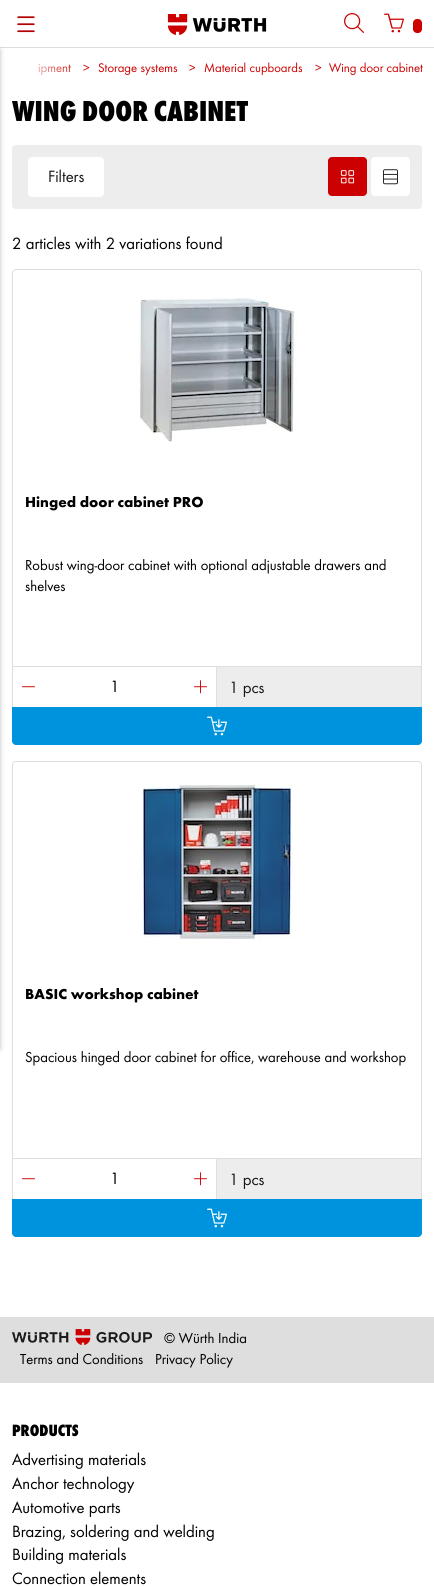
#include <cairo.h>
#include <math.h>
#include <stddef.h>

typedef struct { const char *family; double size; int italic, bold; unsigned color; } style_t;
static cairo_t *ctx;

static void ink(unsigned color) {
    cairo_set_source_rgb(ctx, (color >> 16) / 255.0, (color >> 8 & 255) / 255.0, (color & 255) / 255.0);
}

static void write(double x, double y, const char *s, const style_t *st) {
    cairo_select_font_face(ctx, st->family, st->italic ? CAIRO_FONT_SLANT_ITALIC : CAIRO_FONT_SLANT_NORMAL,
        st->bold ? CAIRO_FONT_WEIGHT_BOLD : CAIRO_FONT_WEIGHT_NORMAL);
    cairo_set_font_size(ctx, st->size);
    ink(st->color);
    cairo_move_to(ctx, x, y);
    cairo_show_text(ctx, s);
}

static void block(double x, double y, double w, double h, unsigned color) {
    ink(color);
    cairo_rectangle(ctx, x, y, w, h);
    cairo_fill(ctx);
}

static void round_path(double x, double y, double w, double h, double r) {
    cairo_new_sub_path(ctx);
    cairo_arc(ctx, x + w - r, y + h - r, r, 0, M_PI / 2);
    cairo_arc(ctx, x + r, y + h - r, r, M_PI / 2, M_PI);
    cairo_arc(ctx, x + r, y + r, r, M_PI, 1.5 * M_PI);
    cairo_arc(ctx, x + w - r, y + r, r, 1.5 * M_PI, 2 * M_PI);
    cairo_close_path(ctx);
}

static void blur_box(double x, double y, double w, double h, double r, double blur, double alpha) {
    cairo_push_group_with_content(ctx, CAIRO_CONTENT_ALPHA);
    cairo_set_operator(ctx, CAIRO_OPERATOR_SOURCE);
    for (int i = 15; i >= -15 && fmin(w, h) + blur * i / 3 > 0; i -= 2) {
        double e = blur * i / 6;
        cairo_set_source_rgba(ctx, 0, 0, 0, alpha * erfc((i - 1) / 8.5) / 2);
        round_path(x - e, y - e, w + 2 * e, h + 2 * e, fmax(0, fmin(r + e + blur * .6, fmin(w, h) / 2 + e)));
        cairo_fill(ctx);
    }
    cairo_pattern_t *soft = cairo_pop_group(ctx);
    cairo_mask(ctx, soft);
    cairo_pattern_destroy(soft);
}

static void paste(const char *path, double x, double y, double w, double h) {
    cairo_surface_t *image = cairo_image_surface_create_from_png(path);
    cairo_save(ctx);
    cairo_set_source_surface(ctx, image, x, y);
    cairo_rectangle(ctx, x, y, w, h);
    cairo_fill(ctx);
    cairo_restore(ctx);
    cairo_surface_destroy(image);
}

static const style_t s1 = {"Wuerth", 13, 0, 0, 0xcc0000};
static const style_t s2 = {"Wuerth ExtraBold", 30, 0, 0, 0x000000};
static const style_t s3 = {"Wuerth", 17, 0, 0, 0x191919};
static const style_t s4 = {"Wuerth", 17, 0, 0, 0x000000};
static const style_t s5 = {"Wuerth", 15, 0, 1, 0x000000};
static const style_t s6 = {"Wuerth", 15, 0, 0, 0x000000};
static const style_t s7 = {"Wuerth ExtraBold", 17, 0, 0, 0x000000};

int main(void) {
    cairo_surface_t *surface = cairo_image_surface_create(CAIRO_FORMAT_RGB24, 434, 1586);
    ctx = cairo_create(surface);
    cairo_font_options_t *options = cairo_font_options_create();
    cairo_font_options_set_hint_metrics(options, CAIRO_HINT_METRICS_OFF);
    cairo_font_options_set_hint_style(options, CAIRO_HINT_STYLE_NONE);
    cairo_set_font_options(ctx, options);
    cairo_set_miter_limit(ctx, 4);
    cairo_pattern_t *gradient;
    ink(0xffffff);
    cairo_paint(ctx);
    block(0, 47, 434, 1, 0xdedede);
    paste("pic1.png", 17, 16, 18, 17);
    paste("pic2.png", 167, 14, 100, 21);
    paste("pic3.png", 344, 13, 20, 20);
    paste("pic4.png", 384, 13, 20, 20);
    ink(0xcc0000);
    round_path(413, 19, 9, 14, 4);
    cairo_fill(ctx);
    ink(0x000000);
    blur_box(-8, 50, 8, 999, 0, 2.5, 0.26);
    write(38, 72, "ipment", &s1);
    write(189, 72, ">", &s1);
    write(204, 72, "Material cupboards", &s1);
    write(315, 72, ">", &s1);
    write(329, 72, "Wing door cabinet", &s1);
    gradient = cairo_pattern_create_linear(16, 70, 81, 70);
    cairo_pattern_add_color_stop_rgba(gradient, 0.02, 1, 1, 1, 1);
    cairo_pattern_add_color_stop_rgba(gradient, 0.98, 1, 1, 1, 0);
    cairo_set_source(ctx, gradient);
    cairo_pattern_destroy(gradient);
    cairo_rectangle(ctx, 38, 63, 33, 13);
    cairo_fill(ctx);
    write(83, 72, ">", &s1);
    write(98, 72, "Storage systems", &s1);
    write(12, 121, "WING DOOR CABINET", &s2);
    ink(0xededed);
    round_path(12, 145, 410, 64, 4);
    cairo_fill(ctx);
    ink(0xffffff);
    round_path(28, 157, 76, 40, 4);
    cairo_fill(ctx);
    write(48, 182, "Filters", &s3);
    ink(0xcc0000);
    round_path(328, 157, 39, 39, 4);
    cairo_fill(ctx);
    paste("pic5.png", 340, 170, 15, 14);
    ink(0xffffff);
    round_path(371, 157, 39, 39, 4);
    cairo_fill(ctx);
    paste("pic6.png", 383, 169, 15, 16);
    write(12, 249, "2 articles with 2 variations found", &s4);
    round_path(12.5, 269.5, 409, 475, 3.5);
    ink(0xdedede);
    cairo_set_line_width(ctx, 1);
    cairo_stroke(ctx);
    paste("pic7.png", 139, 298, 158, 144);
    write(25, 507, "Hinged door cabinet PRO", &s5);
    write(25, 570, "Robust wing-door cabinet with optional adjustable drawers and", &s6);
    write(25, 591, "shelves", &s6);
    ink(0xededed);
    cairo_new_path(ctx);
    cairo_move_to(ctx, 13, 666);
    cairo_line_to(ctx, 421, 666);
    cairo_line_to(ctx, 421, 741);
    cairo_curve_to(ctx, 421, 742.5, 419.5, 744, 418, 744);
    cairo_line_to(ctx, 16, 744);
    cairo_curve_to(ctx, 14.5, 744, 13, 742.5, 13, 741);
    cairo_close_path(ctx);
    cairo_fill(ctx);
    block(13, 666, 408, 1, 0xdedede);
    block(13, 667, 203, 40, 0xffffff);
    block(216, 667, 1, 40, 0xdedede);
    paste("pic8.png", 22, 686, 13, 2);
    write(110, 692, "1", &s4);
    paste("pic9.png", 194, 680, 13, 14);
    write(229, 693, "1 pcs", &s3);
    ink(0x0093dd);
    cairo_new_path(ctx);
    cairo_move_to(ctx, 12, 707);
    cairo_line_to(ctx, 422, 707);
    cairo_line_to(ctx, 422, 741);
    cairo_curve_to(ctx, 422, 743, 420, 745, 418, 745);
    cairo_line_to(ctx, 16, 745);
    cairo_curve_to(ctx, 14, 745, 12, 743, 12, 741);
    cairo_close_path(ctx);
    cairo_fill(ctx);
    paste("pic10.png", 207, 716, 20, 20);
    round_path(12.5, 761.5, 409, 475, 3.5);
    ink(0xdedede);
    cairo_stroke(ctx);
    paste("pic11.png", 141, 784, 152, 159);
    write(25, 999, "BASIC workshop cabinet", &s5);
    write(25, 1062, "Spacious hinged door cabinet for office, warehouse and workshop", &s6);
    ink(0xededed);
    cairo_new_path(ctx);
    cairo_move_to(ctx, 13, 1158);
    cairo_line_to(ctx, 421, 1158);
    cairo_line_to(ctx, 421, 1233);
    cairo_curve_to(ctx, 421, 1234.5, 419.5, 1236, 418, 1236);
    cairo_line_to(ctx, 16, 1236);
    cairo_curve_to(ctx, 14.5, 1236, 13, 1234.5, 13, 1233);
    cairo_close_path(ctx);
    cairo_fill(ctx);
    block(13, 1158, 408, 1, 0xdedede);
    block(13, 1159, 203, 40, 0xffffff);
    block(216, 1159, 1, 40, 0xdedede);
    paste("pic8.png", 22, 1178, 13, 2);
    write(110, 1184, "1", &s4);
    paste("pic9.png", 194, 1172, 13, 14);
    write(229, 1185, "1 pcs", &s3);
    ink(0x0093dd);
    cairo_new_path(ctx);
    cairo_move_to(ctx, 12, 1199);
    cairo_line_to(ctx, 422, 1199);
    cairo_line_to(ctx, 422, 1233);
    cairo_curve_to(ctx, 422, 1235, 420, 1237, 418, 1237);
    cairo_line_to(ctx, 16, 1237);
    cairo_curve_to(ctx, 14, 1237, 12, 1235, 12, 1233);
    cairo_close_path(ctx);
    cairo_fill(ctx);
    paste("pic10.png", 207, 1208, 20, 20);
    block(0, 1317, 434, 66, 0xdedede);
    paste("pic12.png", 12, 1329, 140, 16);
    write(164, 1343, "© Würth India", &s6);
    write(20, 1364, "Terms and Conditions", &s6);
    write(155, 1364, "Privacy Policy", &s6);
    write(12, 1436, "PRODUCTS", &s7);
    write(12, 1465, "Advertising materials", &s4);
    write(12, 1489, "Anchor technology", &s4);
    write(12, 1513, "Automotive parts", &s4);
    write(12, 1537, "Brazing, soldering and welding", &s4);
    write(12, 1560, "Building materials", &s4);
    write(12, 1584, "Connection elements", &s4);
    cairo_surface_write_to_png(surface, "screenshot.png");
    cairo_font_options_destroy(options);
    cairo_destroy(ctx);
    cairo_surface_destroy(surface);
    return 0;
}
